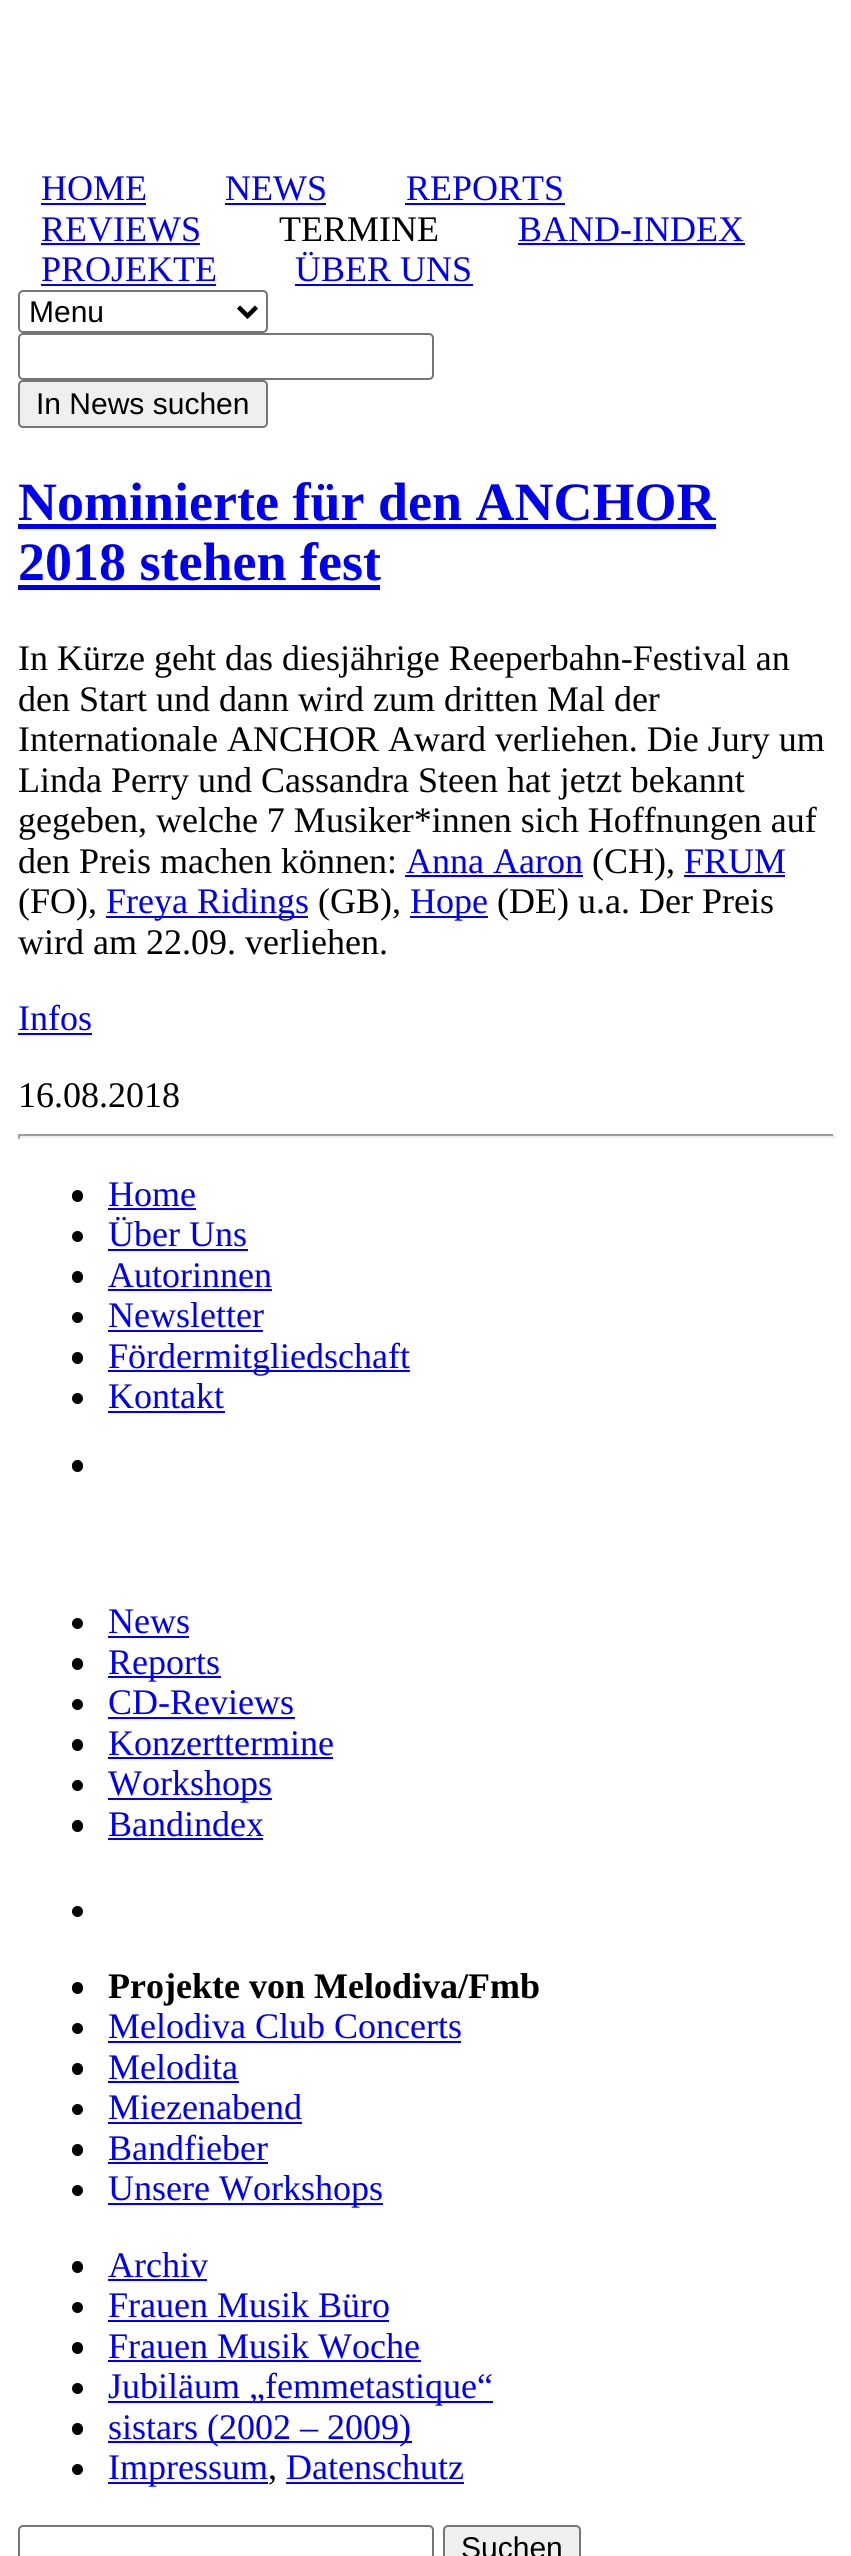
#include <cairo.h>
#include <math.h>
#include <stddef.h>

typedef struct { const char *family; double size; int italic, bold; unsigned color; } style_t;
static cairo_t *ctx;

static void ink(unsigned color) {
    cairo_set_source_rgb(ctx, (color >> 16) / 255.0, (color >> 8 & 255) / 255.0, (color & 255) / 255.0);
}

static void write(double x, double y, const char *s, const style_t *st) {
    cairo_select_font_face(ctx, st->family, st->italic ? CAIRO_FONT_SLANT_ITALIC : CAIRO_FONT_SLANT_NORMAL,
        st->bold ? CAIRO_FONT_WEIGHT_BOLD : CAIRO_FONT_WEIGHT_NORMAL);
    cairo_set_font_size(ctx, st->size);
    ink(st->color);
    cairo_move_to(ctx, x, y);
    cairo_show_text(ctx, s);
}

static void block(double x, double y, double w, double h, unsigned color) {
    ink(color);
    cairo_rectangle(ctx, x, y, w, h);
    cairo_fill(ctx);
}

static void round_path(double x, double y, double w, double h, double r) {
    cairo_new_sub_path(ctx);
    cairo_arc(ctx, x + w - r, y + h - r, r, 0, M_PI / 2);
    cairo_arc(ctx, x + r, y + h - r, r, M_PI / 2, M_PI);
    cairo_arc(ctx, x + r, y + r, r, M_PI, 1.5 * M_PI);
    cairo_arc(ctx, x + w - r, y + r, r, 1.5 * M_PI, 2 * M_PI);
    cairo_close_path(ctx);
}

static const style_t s1 = {"Liberation Serif", 36, 0, 0, 0x0000ee};
static const style_t s2 = {"Liberation Serif", 36, 0, 0, 0x000000};
static const style_t s3 = {"Liberation Sans", 30, 0, 0, 0x000000};
static const style_t s4 = {"Liberation Serif", 54, 0, 1, 0x0000ee};
static const style_t s5 = {"Liberation Serif", 36, 0, 1, 0x000000};

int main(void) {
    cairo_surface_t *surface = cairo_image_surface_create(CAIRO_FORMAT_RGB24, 851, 2556);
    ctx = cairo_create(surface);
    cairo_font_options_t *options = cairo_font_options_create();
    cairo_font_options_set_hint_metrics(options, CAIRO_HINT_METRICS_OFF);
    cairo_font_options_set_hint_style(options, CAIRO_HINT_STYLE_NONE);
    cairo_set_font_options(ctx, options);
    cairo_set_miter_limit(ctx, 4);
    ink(0xffffff);
    cairo_paint(ctx);
    write(41, 200, "HOME", &s1);
    block(41, 203, 105, 2, 0x0000ee);
    write(225, 200, "NEWS", &s1);
    block(225, 203, 101, 2, 0x0000ee);
    write(406, 200, "REPORTS", &s1);
    block(405, 203, 160, 2, 0x0000ee);
    write(41, 241, "REVIEWS", &s1);
    block(41, 243, 159, 2, 0x0000ee);
    write(279, 241, "TERMINE", &s2);
    write(518, 241, "BAND-INDEX", &s1);
    block(518, 243, 227, 2, 0x0000ee);
    write(41, 281, "PROJEKTE", &s1);
    block(41, 284, 175, 2, 0x0000ee);
    write(295, 281, "ÜBER UNS", &s1);
    block(295, 284, 178, 2, 0x0000ee);
    round_path(19, 291, 248, 41, 4);
    ink(0x767676);
    cairo_stroke(ctx);
    cairo_new_path(ctx);
    cairo_move_to(ctx, 238.5, 307);
    cairo_line_to(ctx, 247.5, 316);
    cairo_line_to(ctx, 256.5, 307);
    ink(0x000000);
    cairo_set_line_width(ctx, 4.5);
    cairo_stroke(ctx);
    write(29, 322, "Menu", &s3);
    round_path(19, 334, 414, 45, 4);
    ink(0x767676);
    cairo_set_line_width(ctx, 2);
    cairo_stroke(ctx);
    ink(0xefefef);
    round_path(19, 381, 248, 46, 4);
    cairo_fill_preserve(ctx);
    ink(0x767676);
    cairo_stroke(ctx);
    write(36, 414, "In News suchen", &s3);
    write(18, 520, "Nominierte für den ANCHOR", &s4);
    block(18, 524, 698, 5, 0x0000ee);
    write(18, 580, "2018 stehen fest", &s4);
    block(18, 585, 362, 5, 0x0000ee);
    write(18, 670, "In Kürze geht das diesjährige Reeperbahn-Festival an", &s2);
    write(18, 711, "den Start und dann wird zum dritten Mal der", &s2);
    write(18, 751, "Internationale ANCHOR Award verliehen. Die Jury um", &s2);
    write(18, 792, "Linda Perry und Cassandra Steen hat jetzt bekannt", &s2);
    write(18, 832, "gegeben, welche 7 Musiker*innen sich Hoffnungen auf", &s2);
    write(18, 873, "den Preis machen können:", &s2);
    write(406, 873, "Anna Aaron", &s1);
    block(405, 875, 178, 2, 0x0000ee);
    write(592, 873, "(CH),", &s2);
    write(684, 873, "FRUM", &s1);
    block(684, 875, 101, 2, 0x0000ee);
    write(18, 913, "(FO),", &s2);
    block(106, 916, 202, 2, 0x0000ee);
    write(106, 913, "Freya Ridings", &s1);
    write(318, 913, "(GB),", &s2);
    block(410, 916, 78, 2, 0x0000ee);
    write(410, 913, "Hope", &s1);
    write(497, 913, "(DE) u.a. Der Preis", &s2);
    write(18, 954, "wird am 22.09. verliehen.", &s2);
    write(18, 1030, "Infos", &s1);
    block(18, 1033, 74, 2, 0x0000ee);
    write(18, 1107, "16.08.2018", &s2);
    block(18, 1134, 817, 2, 0x9f9f9f);
    block(833, 1134, 2, 5, 0xeeeeee);
    block(18, 1136, 817, 2, 0xeeeeee);
    block(18, 1134, 2, 5, 0x9f9f9f);
    ink(0x000000);
    round_path(72, 1190, 11, 12, 5.5);
    cairo_fill(ctx);
    write(108, 1206, "Home", &s1);
    block(108, 1208, 88, 2, 0x0000ee);
    ink(0x000000);
    cairo_new_path(ctx);
    cairo_arc(ctx, 77.5, 1236.5, 5.5, 0, 2 * M_PI);
    cairo_fill(ctx);
    write(108, 1246, "Über Uns", &s1);
    block(108, 1249, 140, 2, 0x0000ee);
    ink(0x000000);
    round_path(72, 1271, 11, 12, 5.5);
    cairo_fill(ctx);
    write(108, 1287, "Autorinnen", &s1);
    block(108, 1289, 164, 2, 0x0000ee);
    ink(0x000000);
    cairo_new_path(ctx);
    cairo_arc(ctx, 77.5, 1317.5, 5.5, 0, 2 * M_PI);
    cairo_fill(ctx);
    write(108, 1327, "Newsletter", &s1);
    block(108, 1330, 155, 2, 0x0000ee);
    ink(0x000000);
    round_path(72, 1352, 11, 12, 5.5);
    cairo_fill(ctx);
    block(108, 1370, 302, 2, 0x0000ee);
    write(108, 1368, "Fördermitgliedschaft", &s1);
    ink(0x000000);
    cairo_new_path(ctx);
    cairo_arc(ctx, 77.5, 1398.5, 5.5, 0, 2 * M_PI);
    cairo_fill(ctx);
    write(108, 1408, "Kontakt", &s1);
    block(108, 1411, 117, 2, 0x0000ee);
    ink(0x000000);
    round_path(72, 1460, 11, 12, 5.5);
    cairo_fill(ctx);
    cairo_arc(ctx, 77.5, 1623.5, 5.5, 0, 2 * M_PI);
    cairo_fill(ctx);
    write(108, 1633, "News", &s1);
    block(108, 1636, 81, 2, 0x0000ee);
    ink(0x000000);
    round_path(72, 1658, 11, 12, 5.5);
    cairo_fill(ctx);
    block(108, 1676, 113, 2, 0x0000ee);
    write(108, 1674, "Reports", &s1);
    ink(0x000000);
    cairo_new_path(ctx);
    cairo_arc(ctx, 77.5, 1704.5, 5.5, 0, 2 * M_PI);
    cairo_fill(ctx);
    write(108, 1714, "CD-Reviews", &s1);
    block(108, 1717, 187, 2, 0x0000ee);
    ink(0x000000);
    round_path(72, 1739, 11, 12, 5.5);
    cairo_fill(ctx);
    write(108, 1755, "Konzerttermine", &s1);
    block(108, 1757, 225, 2, 0x0000ee);
    ink(0x000000);
    cairo_new_path(ctx);
    cairo_arc(ctx, 77.5, 1785.5, 5.5, 0, 2 * M_PI);
    cairo_fill(ctx);
    block(108, 1798, 164, 2, 0x0000ee);
    write(108, 1795, "Workshops", &s1);
    ink(0x000000);
    round_path(72, 1820, 11, 12, 5.5);
    cairo_fill(ctx);
    write(108, 1836, "Bandindex", &s1);
    block(108, 1838, 155, 2, 0x0000ee);
    ink(0x000000);
    cairo_new_path(ctx);
    cairo_arc(ctx, 77.5, 1911.5, 5.5, 0, 2 * M_PI);
    cairo_fill(ctx);
    round_path(72, 1982, 11, 12, 5.5);
    cairo_fill(ctx);
    write(108, 1998, "Projekte von Melodiva/Fmb", &s5);
    cairo_new_path(ctx);
    cairo_arc(ctx, 77.5, 2028.5, 5.5, 0, 2 * M_PI);
    cairo_fill(ctx);
    write(108, 2038, "Melodiva Club Concerts", &s1);
    block(108, 2041, 353, 2, 0x0000ee);
    ink(0x000000);
    round_path(72, 2063, 11, 12, 5.5);
    cairo_fill(ctx);
    write(108, 2079, "Melodita", &s1);
    block(108, 2081, 131, 2, 0x0000ee);
    ink(0x000000);
    cairo_new_path(ctx);
    cairo_arc(ctx, 77.5, 2109.5, 5.5, 0, 2 * M_PI);
    cairo_fill(ctx);
    write(108, 2119, "Miezenabend", &s1);
    block(108, 2122, 194, 2, 0x0000ee);
    ink(0x000000);
    round_path(72, 2144, 11, 12, 5.5);
    cairo_fill(ctx);
    write(108, 2160, "Bandfieber", &s1);
    block(108, 2162, 160, 2, 0x0000ee);
    ink(0x000000);
    cairo_new_path(ctx);
    cairo_arc(ctx, 77.5, 2190.5, 5.5, 0, 2 * M_PI);
    cairo_fill(ctx);
    block(108, 2203, 275, 2, 0x0000ee);
    write(108, 2200, "Unsere Workshops", &s1);
    ink(0x000000);
    round_path(72, 2261, 11, 12, 5.5);
    cairo_fill(ctx);
    write(108, 2277, "Archiv", &s1);
    block(108, 2279, 99, 2, 0x0000ee);
    ink(0x000000);
    cairo_new_path(ctx);
    cairo_arc(ctx, 77.5, 2307.5, 5.5, 0, 2 * M_PI);
    cairo_fill(ctx);
    write(108, 2317, "Frauen Musik Büro", &s1);
    block(108, 2320, 281, 2, 0x0000ee);
    ink(0x000000);
    round_path(72, 2342, 11, 12, 5.5);
    cairo_fill(ctx);
    write(108, 2358, "Frauen Musik Woche", &s1);
    block(108, 2360, 313, 2, 0x0000ee);
    ink(0x000000);
    cairo_new_path(ctx);
    cairo_arc(ctx, 77.5, 2388.5, 5.5, 0, 2 * M_PI);
    cairo_fill(ctx);
    block(108, 2401, 385, 2, 0x0000ee);
    write(108, 2398, "Jubiläum „femmetastique“", &s1);
    ink(0x000000);
    round_path(72, 2423, 11, 12, 5.5);
    cairo_fill(ctx);
    block(108, 2441, 304, 2, 0x0000ee);
    write(108, 2439, "sistars (2002 – 2009)", &s1);
    ink(0x000000);
    cairo_new_path(ctx);
    cairo_arc(ctx, 77.5, 2469.5, 5.5, 0, 2 * M_PI);
    cairo_fill(ctx);
    block(108, 2482, 160, 2, 0x0000ee);
    write(108, 2479, "Impressum", &s1);
    write(286, 2479, "Datenschutz", &s1);
    block(286, 2482, 178, 2, 0x0000ee);
    write(268, 2479, ",", &s2);
    round_path(19, 2526, 414, 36, 4);
    ink(0x767676);
    cairo_stroke(ctx);
    ink(0xefefef);
    round_path(444, 2526, 136, 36, 4);
    cairo_fill_preserve(ctx);
    ink(0x767676);
    cairo_stroke(ctx);
    write(461, 2558, "Suchen", &s3);
    cairo_surface_write_to_png(surface, "screenshot.png");
    cairo_font_options_destroy(options);
    cairo_destroy(ctx);
    cairo_surface_destroy(surface);
    return 0;
}
